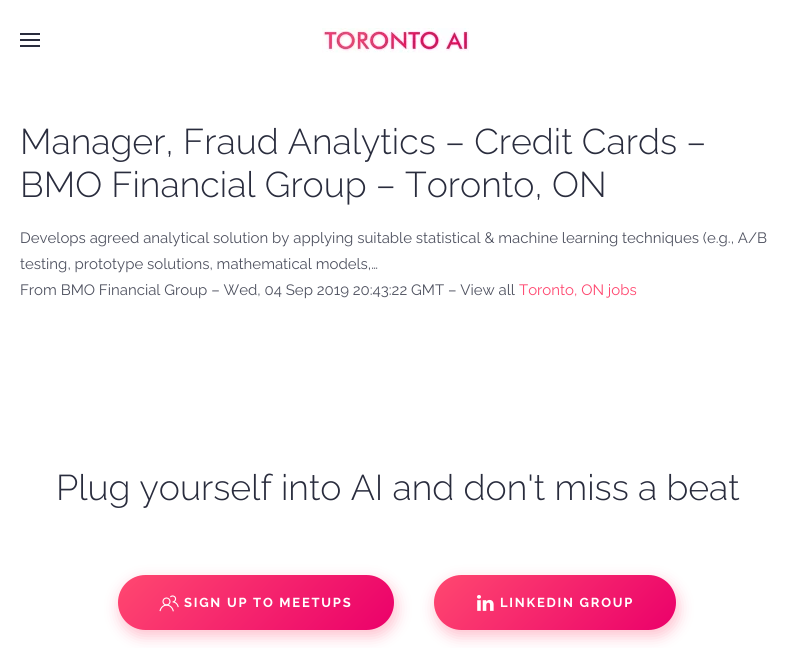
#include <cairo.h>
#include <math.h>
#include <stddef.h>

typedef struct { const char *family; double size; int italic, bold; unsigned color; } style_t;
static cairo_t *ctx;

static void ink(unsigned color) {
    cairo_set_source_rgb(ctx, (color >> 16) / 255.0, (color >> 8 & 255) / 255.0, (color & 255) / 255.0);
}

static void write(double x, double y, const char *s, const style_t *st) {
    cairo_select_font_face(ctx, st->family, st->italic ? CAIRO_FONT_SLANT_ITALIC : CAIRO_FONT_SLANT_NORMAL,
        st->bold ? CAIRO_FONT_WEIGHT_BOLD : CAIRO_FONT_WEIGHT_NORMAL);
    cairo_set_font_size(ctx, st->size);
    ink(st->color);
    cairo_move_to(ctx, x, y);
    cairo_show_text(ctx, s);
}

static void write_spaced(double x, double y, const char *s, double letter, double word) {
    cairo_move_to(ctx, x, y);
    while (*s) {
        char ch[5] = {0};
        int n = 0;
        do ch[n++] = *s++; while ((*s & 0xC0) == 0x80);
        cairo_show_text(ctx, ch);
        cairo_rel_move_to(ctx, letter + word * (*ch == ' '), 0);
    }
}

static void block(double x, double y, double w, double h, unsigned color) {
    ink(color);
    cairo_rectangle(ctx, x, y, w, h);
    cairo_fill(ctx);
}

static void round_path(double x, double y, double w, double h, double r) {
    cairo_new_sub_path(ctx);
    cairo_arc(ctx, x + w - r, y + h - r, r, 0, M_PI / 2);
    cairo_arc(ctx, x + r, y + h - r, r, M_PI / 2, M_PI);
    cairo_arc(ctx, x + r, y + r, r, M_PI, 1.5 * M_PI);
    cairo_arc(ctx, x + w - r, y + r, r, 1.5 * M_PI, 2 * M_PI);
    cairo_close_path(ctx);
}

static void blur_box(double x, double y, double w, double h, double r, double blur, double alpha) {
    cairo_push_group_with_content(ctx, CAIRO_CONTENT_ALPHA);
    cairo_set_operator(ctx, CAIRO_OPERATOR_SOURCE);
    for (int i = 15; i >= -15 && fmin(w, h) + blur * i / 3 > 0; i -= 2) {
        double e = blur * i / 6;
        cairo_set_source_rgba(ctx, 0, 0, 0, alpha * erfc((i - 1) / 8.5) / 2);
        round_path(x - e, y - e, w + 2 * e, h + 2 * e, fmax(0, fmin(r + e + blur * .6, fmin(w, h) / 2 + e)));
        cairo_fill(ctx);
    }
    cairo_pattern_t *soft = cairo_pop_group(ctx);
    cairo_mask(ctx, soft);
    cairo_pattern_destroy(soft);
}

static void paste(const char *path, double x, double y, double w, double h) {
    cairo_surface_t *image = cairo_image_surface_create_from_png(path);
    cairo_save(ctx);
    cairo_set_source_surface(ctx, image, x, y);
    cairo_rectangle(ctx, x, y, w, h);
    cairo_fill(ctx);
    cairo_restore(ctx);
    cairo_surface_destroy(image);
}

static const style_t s1 = {"Raleway Thin", 35.75, 0, 0, 0x292c3d};
static const style_t s2 = {"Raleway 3 Thin", 15, 0, 0, 0x4f5260};
static const style_t s3 = {"Raleway 3 Thin", 15, 0, 0, 0xff4870};

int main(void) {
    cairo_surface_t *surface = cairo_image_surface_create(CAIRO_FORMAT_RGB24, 794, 648);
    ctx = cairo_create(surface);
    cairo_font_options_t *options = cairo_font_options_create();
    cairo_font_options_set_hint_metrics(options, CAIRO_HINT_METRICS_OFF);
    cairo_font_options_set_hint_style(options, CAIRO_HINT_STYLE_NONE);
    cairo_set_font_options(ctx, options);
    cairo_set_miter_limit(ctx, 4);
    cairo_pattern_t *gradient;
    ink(0xffffff);
    cairo_paint(ctx);
    block(20, 33, 20, 2, 0x292c3d);
    block(20, 39, 20, 2, 0x292c3d);
    block(20, 45, 20, 2, 0x292c3d);
    paste("pic1.png", 322, 28, 147, 25);
    write(20, 154, "Manager, Fraud Analytics – Credit Cards –", &s1);
    write(20, 197, "BMO Financial Group – Toronto, ON", &s1);
    write(20, 243, "Develops agreed analytical solution by applying suitable statistical & machine learning techniques (e.g., A/B", &s2);
    write(20, 269, "testing, prototype solutions, mathematical models,…", &s2);
    write(20, 295, "From BMO Financial Group – Wed, 04 Sep 2019 20:43:22 GMT – View all", &s2);
    write(519, 295, "Toronto, ON jobs", &s3);
    write(56, 500, "Plug yourself into AI and don't miss a beat", &s1);
    ink(0xff4870);
    blur_box(120, 581, 276, 55, 27.5, 7.5, 0.35);
    gradient = cairo_pattern_create_linear(173, 520, 339, 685);
    cairo_pattern_add_color_stop_rgba(gradient, 0, 1, 0.282, 0.439, 1);
    cairo_pattern_add_color_stop_rgba(gradient, 1, 0.922, 0, 0.416, 1);
    cairo_set_source(ctx, gradient);
    cairo_pattern_destroy(gradient);
    round_path(118, 575, 276, 55, 27.5);
    cairo_fill(ctx);
    paste("pic2.png", 159, 595, 20, 17);
    cairo_select_font_face(ctx, "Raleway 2 Thin", CAIRO_FONT_SLANT_NORMAL, CAIRO_FONT_WEIGHT_NORMAL);
    cairo_set_font_size(ctx, 13);
    ink(0xffffff);
    write_spaced(184, 607, "SIGN UP TO MEETUPS", 1.75, 0);
    ink(0xff4870);
    blur_box(436, 581, 242, 55, 27.5, 7.5, 0.35);
    gradient = cairo_pattern_create_linear(481, 528, 629, 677);
    cairo_pattern_add_color_stop_rgba(gradient, 0, 1, 0.282, 0.439, 1);
    cairo_pattern_add_color_stop_rgba(gradient, 1, 0.922, 0, 0.416, 1);
    cairo_set_source(ctx, gradient);
    cairo_pattern_destroy(gradient);
    round_path(434, 575, 242, 55, 27.5);
    cairo_fill(ctx);
    paste("pic3.png", 477, 595, 17, 16);
    ink(0xffffff);
    write_spaced(500, 607, "LINKEDIN GROUP", 1.75, 0);
    cairo_surface_write_to_png(surface, "screenshot.png");
    cairo_font_options_destroy(options);
    cairo_destroy(ctx);
    cairo_surface_destroy(surface);
    return 0;
}
